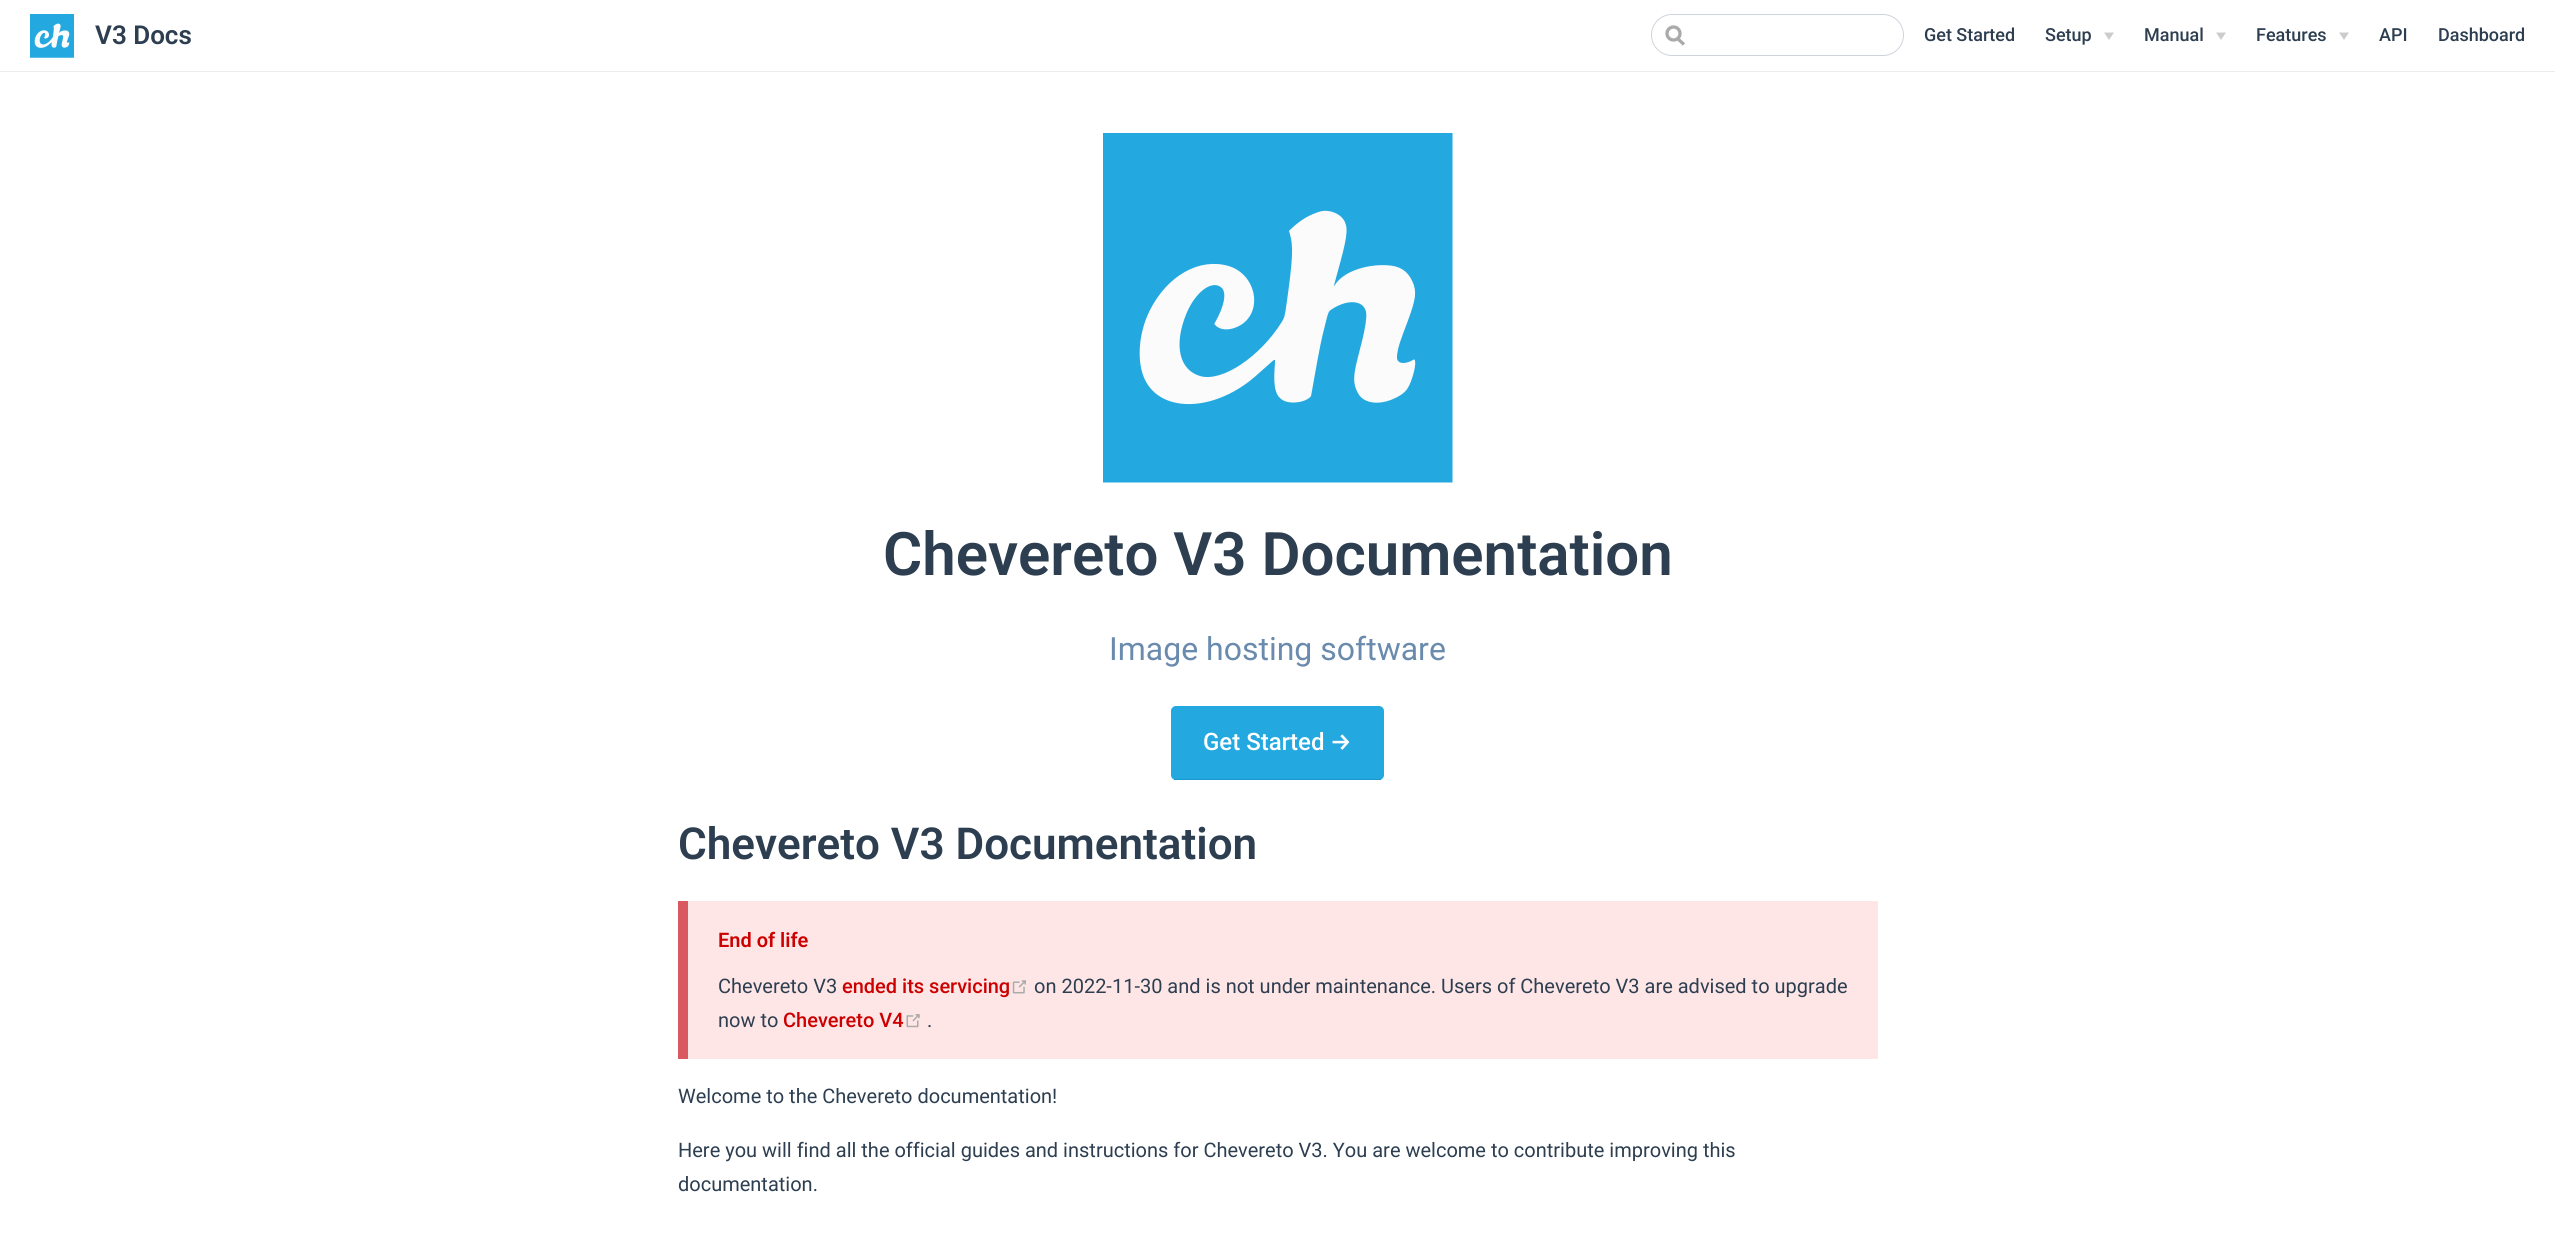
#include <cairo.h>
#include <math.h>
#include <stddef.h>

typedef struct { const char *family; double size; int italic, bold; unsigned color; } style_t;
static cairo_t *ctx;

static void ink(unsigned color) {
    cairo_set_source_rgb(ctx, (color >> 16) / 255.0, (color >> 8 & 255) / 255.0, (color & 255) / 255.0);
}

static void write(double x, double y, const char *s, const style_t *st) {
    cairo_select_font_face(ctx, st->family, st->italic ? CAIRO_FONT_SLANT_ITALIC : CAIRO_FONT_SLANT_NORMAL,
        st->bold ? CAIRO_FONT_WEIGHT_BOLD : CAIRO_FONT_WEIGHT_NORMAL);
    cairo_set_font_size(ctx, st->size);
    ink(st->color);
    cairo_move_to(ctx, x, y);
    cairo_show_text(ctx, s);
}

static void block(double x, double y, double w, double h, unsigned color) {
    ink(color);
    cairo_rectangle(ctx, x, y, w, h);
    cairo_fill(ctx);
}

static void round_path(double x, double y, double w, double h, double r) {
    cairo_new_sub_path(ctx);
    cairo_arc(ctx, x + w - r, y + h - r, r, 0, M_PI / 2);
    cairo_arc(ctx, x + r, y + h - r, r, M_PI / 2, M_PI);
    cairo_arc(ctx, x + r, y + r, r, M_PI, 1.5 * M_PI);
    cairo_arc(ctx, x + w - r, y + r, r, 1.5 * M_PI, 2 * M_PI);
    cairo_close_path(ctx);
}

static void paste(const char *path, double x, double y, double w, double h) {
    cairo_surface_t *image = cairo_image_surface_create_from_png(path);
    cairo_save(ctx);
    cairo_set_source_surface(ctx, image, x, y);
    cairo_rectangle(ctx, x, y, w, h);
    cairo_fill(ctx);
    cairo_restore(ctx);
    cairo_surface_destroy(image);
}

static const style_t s1 = {"Roboto SemiBold", 26, 0, 0, 0x2c3e50};
static const style_t s2 = {"Roboto Medium", 18, 0, 0, 0x2c3e50};
static const style_t s3 = {"Roboto SemiBold", 60, 0, 0, 0x2c3e50};
static const style_t s4 = {"Roboto", 32, 0, 0, 0x6a8bad};
static const style_t s5 = {"Roboto Medium", 24, 0, 0, 0xffffff};
static const style_t s6 = {"Fira Sans Medium", 24, 0, 0, 0xffffff};
static const style_t s7 = {"Roboto SemiBold", 44, 0, 0, 0x2c3e50};
static const style_t s8 = {"Roboto SemiBold", 20, 0, 0, 0xcc0000};
static const style_t s9 = {"Roboto", 20, 0, 0, 0x2c3e50};
static const style_t s10 = {"Roboto Medium", 20, 0, 0, 0xcc0000};

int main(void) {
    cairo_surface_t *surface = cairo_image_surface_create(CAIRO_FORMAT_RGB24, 2555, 1244);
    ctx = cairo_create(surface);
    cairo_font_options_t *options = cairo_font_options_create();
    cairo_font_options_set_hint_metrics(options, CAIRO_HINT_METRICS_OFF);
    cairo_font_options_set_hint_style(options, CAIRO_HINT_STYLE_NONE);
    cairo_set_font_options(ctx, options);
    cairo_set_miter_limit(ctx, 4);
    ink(0xffffff);
    cairo_paint(ctx);
    block(0, 71, 2555, 1, 0xeaecef);
    paste("pic1.png", 30, 14, 44, 44);
    write(95, 44, "V3 Docs", &s1);
    cairo_new_path(ctx);
    cairo_move_to(ctx, 1684, 44.5);
    cairo_line_to(ctx, 1677, 38);
    ink(0xaaaaaa);
    cairo_set_line_width(ctx, 3.3);
    cairo_stroke(ctx);
    cairo_arc(ctx, 1673.5, 33.5, 6.5, 0, 2 * M_PI);
    cairo_stroke(ctx);
    round_path(1651.5, 14.5, 252, 41, 20.5);
    ink(0xcfd4db);
    cairo_set_line_width(ctx, 1);
    cairo_stroke(ctx);
    write(1924, 41, "Get Started", &s2);
    write(2045, 41, "Setup", &s2);
    ink(0xcccccc);
    cairo_new_path(ctx);
    cairo_move_to(ctx, 2104, 32.5);
    cairo_line_to(ctx, 2114, 32.5);
    cairo_line_to(ctx, 2109, 40);
    cairo_close_path(ctx);
    cairo_fill(ctx);
    write(2144, 41, "Manual", &s2);
    ink(0xcccccc);
    cairo_new_path(ctx);
    cairo_move_to(ctx, 2216, 32.5);
    cairo_line_to(ctx, 2226, 32.5);
    cairo_line_to(ctx, 2221, 40);
    cairo_close_path(ctx);
    cairo_fill(ctx);
    write(2256, 41, "Features", &s2);
    ink(0xcccccc);
    cairo_new_path(ctx);
    cairo_move_to(ctx, 2339, 32.5);
    cairo_line_to(ctx, 2349, 32.5);
    cairo_line_to(ctx, 2344, 40);
    cairo_close_path(ctx);
    cairo_fill(ctx);
    write(2379, 41, "API", &s2);
    write(2438, 41, "Dashboard", &s2);
    paste("pic2.png", 1103, 133, 350, 350);
    write(883, 575, "Chevereto V3 Documentation", &s3);
    write(1109, 660, "Image hosting software", &s4);
    ink(0x23a8e0);
    round_path(1171, 706, 213, 74, 5);
    cairo_fill(ctx);
    block(1174, 779, 207, 1, 0x1d98cc);
    write(1203, 750, "Get Started", &s5);
    write(1330, 750, "→", &s6);
    write(678, 859, "Chevereto V3 Documentation", &s7);
    block(688, 901, 1190, 158, 0xffe6e6);
    block(678, 901, 10, 158, 0xda5961);
    write(718, 947, "End of life", &s8);
    write(718, 993, "Chevereto V3", &s9);
    write(842, 993, "ended its servicing", &s10);
    paste("pic3.png", 1012, 980, 14, 14);
    write(1034, 993, "on 2022-11-30 and is not under maintenance. Users of Chevereto V3 are advised to upgrade", &s9);
    write(718, 1027, "now to", &s9);
    write(783, 1027, "Chevereto V4", &s10);
    paste("pic4.png", 906, 1014, 14, 14);
    write(927, 1027, ".", &s9);
    write(678, 1103, "Welcome to the Chevereto documentation!", &s9);
    write(678, 1157, "Here you will find all the official guides and instructions for Chevereto V3. You are welcome to contribute improving this", &s9);
    write(678, 1191, "documentation.", &s9);
    cairo_surface_write_to_png(surface, "screenshot.png");
    cairo_font_options_destroy(options);
    cairo_destroy(ctx);
    cairo_surface_destroy(surface);
    return 0;
}
